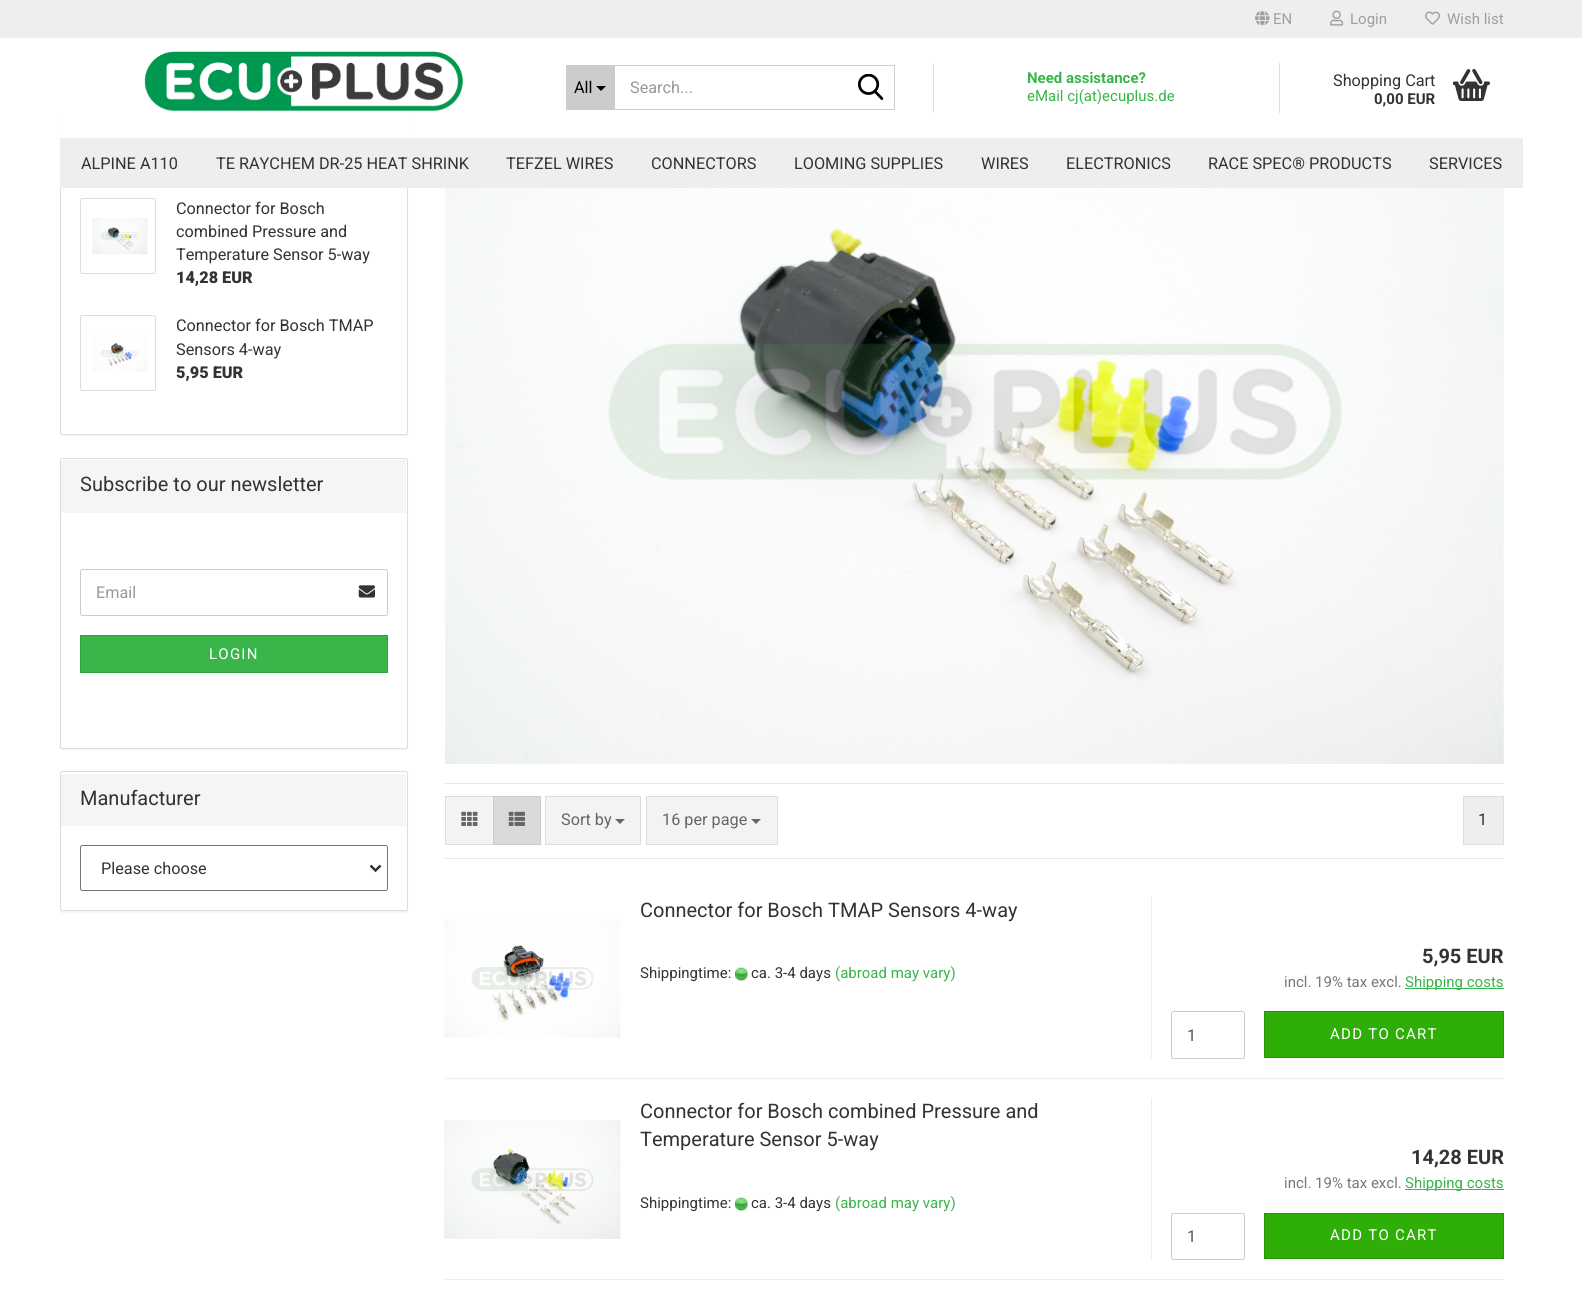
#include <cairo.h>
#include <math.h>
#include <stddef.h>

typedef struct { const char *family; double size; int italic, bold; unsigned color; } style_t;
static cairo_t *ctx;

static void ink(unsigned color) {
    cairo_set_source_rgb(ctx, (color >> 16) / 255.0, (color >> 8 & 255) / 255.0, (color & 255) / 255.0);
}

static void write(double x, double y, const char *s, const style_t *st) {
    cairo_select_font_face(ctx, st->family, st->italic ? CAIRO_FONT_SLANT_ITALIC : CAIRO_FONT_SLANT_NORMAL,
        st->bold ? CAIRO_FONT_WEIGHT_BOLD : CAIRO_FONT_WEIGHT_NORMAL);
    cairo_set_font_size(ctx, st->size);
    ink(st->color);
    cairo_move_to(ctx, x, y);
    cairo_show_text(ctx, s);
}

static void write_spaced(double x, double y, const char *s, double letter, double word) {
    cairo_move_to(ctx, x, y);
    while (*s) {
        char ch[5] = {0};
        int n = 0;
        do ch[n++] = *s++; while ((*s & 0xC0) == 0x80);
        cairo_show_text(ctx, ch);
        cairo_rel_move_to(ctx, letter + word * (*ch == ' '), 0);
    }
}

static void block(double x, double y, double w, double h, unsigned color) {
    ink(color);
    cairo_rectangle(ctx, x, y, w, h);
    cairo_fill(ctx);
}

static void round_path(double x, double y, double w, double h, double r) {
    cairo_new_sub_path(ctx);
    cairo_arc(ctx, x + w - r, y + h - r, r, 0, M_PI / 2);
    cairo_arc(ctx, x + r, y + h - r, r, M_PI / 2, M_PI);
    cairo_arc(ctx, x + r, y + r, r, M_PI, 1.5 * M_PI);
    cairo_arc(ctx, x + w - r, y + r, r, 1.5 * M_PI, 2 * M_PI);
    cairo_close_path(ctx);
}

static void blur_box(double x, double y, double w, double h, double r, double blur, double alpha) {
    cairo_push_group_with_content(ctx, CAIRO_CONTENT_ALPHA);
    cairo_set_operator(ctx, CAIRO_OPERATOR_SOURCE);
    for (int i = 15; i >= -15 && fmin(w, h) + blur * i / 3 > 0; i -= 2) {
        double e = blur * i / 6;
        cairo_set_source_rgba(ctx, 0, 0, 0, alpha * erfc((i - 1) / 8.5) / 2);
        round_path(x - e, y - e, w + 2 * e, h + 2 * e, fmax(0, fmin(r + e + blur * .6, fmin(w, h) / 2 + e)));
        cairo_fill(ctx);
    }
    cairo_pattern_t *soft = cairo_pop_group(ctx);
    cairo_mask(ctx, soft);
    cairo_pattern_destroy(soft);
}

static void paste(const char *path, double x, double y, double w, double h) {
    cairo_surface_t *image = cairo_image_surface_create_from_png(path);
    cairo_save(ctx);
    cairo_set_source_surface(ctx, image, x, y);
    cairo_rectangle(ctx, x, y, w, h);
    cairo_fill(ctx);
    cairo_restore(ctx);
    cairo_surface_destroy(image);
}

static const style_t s1 = {"Roboto", 15, 0, 0, 0x9f9f9f};
static const style_t s2 = {"Roboto", 16.25, 0, 0, 0x000000};
static const style_t s3 = {"Roboto", 16.25, 0, 0, 0x999999};
static const style_t s4 = {"Roboto", 15, 0, 1, 0x39b54a};
static const style_t s5 = {"Roboto", 15, 0, 0, 0x39b54a};
static const style_t s6 = {"Roboto", 16.25, 0, 0, 0x333333};
static const style_t s7 = {"Roboto", 15, 0, 1, 0x333333};
static const style_t s8 = {"Roboto Black", 16.25, 0, 0, 0x333333};
static const style_t s9 = {"Roboto", 20, 0, 0, 0x333333};
static const style_t s10 = {"Roboto", 16.25, 0, 0, 0x666666};
static const style_t s11 = {"Roboto", 15, 0, 0, 0x333333};
static const style_t s12 = {"Roboto", 20, 0, 1, 0x333333};
static const style_t s13 = {"Roboto", 15, 0, 0, 0x777777};
static const style_t s14 = {"Roboto", 16.25, 0, 0, 0x555555};

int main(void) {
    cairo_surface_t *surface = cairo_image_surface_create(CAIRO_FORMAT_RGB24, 1582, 1298);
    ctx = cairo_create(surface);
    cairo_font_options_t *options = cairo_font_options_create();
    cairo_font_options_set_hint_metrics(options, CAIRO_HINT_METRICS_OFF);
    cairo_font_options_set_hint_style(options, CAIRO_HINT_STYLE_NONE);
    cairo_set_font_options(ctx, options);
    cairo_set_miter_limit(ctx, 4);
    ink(0xffffff);
    cairo_paint(ctx);
    ink(0x000000);
    blur_box(60, 113, 348, 323, 2.5, 0.5, 0.05);
    ink(0xffffff);
    round_path(60.5, 111.5, 347, 323, 2);
    cairo_fill_preserve(ctx);
    ink(0xdddddd);
    cairo_set_line_width(ctx, 1);
    cairo_stroke(ctx);
    block(60, 111, 348, 77, 0xffffff);
    block(0, 0, 1582, 38, 0xeeeeee);
    paste("pic1.png", 1255, 10, 15, 16);
    write(1273, 24, "EN", &s1);
    paste("pic2.png", 1330, 10, 14, 16);
    write(1350, 24, "Login", &s1);
    paste("pic3.png", 1425, 11, 15, 14);
    write(1447, 24, "Wish list", &s1);
    paste("pic4.png", 144, 51, 320, 61);
    block(566, 65, 49, 45, 0xcccccc);
    write(574, 93, "All", &s2);
    cairo_new_path(ctx);
    cairo_move_to(ctx, 596, 86);
    cairo_line_to(ctx, 606, 86);
    cairo_line_to(ctx, 601, 91);
    cairo_close_path(ctx);
    cairo_fill(ctx);
    block(615, 65, 280, 1, 0xcccccc);
    block(894, 65, 1, 45, 0xcccccc);
    block(615, 109, 280, 1, 0xcccccc);
    write(630, 93, "Search...", &s3);
    paste("pic5.png", 858, 74, 26, 26);
    block(933, 63, 1, 50, 0xdddddd);
    write(1027, 83, "Need assistance?", &s4);
    write(1027, 101, "eMail cj(at)ecuplus.de", &s5);
    block(1279, 63, 1, 50, 0xdddddd);
    write(1333, 86, "Shopping Cart", &s6);
    write(1374, 104, "0,00 EUR", &s7);
    paste("pic6.png", 1453, 69, 37, 32);
    block(60, 138, 1463, 50, 0xeeeeee);
    write(81, 169, "ALPINE A110", &s6);
    write(216, 169, "TE RAYCHEM DR-25 HEAT SHRINK", &s6);
    write(506, 169, "TEFZEL WIRES", &s6);
    write(651, 169, "CONNECTORS", &s6);
    write(794, 169, "LOOMING SUPPLIES", &s6);
    write(981, 169, "WIRES", &s6);
    write(1066, 169, "ELECTRONICS", &s6);
    write(1208, 169, "RACE SPEC® PRODUCTS", &s6);
    write(1429, 169, "SERVICES", &s6);
    round_path(80.5, 198.5, 75, 75, 2);
    ink(0xdddddd);
    cairo_stroke(ctx);
    paste("pic7.png", 92, 217, 56, 37);
    write(176, 214, "Connector for Bosch", &s6);
    write(176, 237, "combined Pressure and", &s6);
    write(176, 260, "Temperature Sensor 5-way", &s6);
    write(176, 283, "14,28 EUR", &s8);
    round_path(80.5, 315.5, 75, 75, 2);
    ink(0xdddddd);
    cairo_stroke(ctx);
    paste("pic8.png", 92, 335, 56, 37);
    write(176, 331, "Connector for Bosch TMAP", &s6);
    write(176, 355, "Sensors 4-way", &s6);
    write(176, 378, "5,95 EUR", &s8);
    ink(0x000000);
    blur_box(60, 459, 348, 291, 2.5, 0.5, 0.05);
    ink(0xffffff);
    round_path(60.5, 458.5, 347, 290, 2);
    cairo_fill_preserve(ctx);
    ink(0xdddddd);
    cairo_stroke(ctx);
    ink(0xf5f5f5);
    cairo_new_path(ctx);
    cairo_move_to(ctx, 62, 459);
    cairo_line_to(ctx, 405, 459);
    cairo_curve_to(ctx, 405.5, 459, 406, 459.5, 406, 460);
    cairo_line_to(ctx, 406, 513);
    cairo_line_to(ctx, 61, 513);
    cairo_line_to(ctx, 61, 460);
    cairo_curve_to(ctx, 61, 459.5, 61.5, 459, 62, 459);
    cairo_close_path(ctx);
    cairo_fill(ctx);
    ink(0xffffff);
    cairo_new_path(ctx);
    cairo_move_to(ctx, 62, 460);
    cairo_line_to(ctx, 405, 460);
    cairo_line_to(ctx, 406, 461);
    cairo_line_to(ctx, 406, 460);
    cairo_line_to(ctx, 405, 459);
    cairo_line_to(ctx, 62, 459);
    cairo_curve_to(ctx, 61, 459, 61, 460, 61, 461);
    cairo_close_path(ctx);
    cairo_fill(ctx);
    write(80, 491, "Subscribe to our newsletter", &s9);
    round_path(80.5, 569.5, 307, 46, 2);
    ink(0xcccccc);
    cairo_stroke(ctx);
    write(96, 598, "Email", &s3);
    paste("pic9.png", 358, 585, 17, 13);
    ink(0x39b54a);
    cairo_rectangle(ctx, 80.5, 635.5, 307, 37);
    cairo_fill_preserve(ctx);
    ink(0x33a242);
    cairo_stroke(ctx);
    cairo_set_font_size(ctx, 15);
    ink(0xffffff);
    write_spaced(209, 659, "LOGIN", 1.25, 0);
    ink(0x000000);
    blur_box(60, 773, 348, 140, 2.5, 0.5, 0.05);
    ink(0xffffff);
    round_path(60.5, 771.5, 347, 139, 2);
    cairo_fill_preserve(ctx);
    ink(0xdddddd);
    cairo_stroke(ctx);
    ink(0xf5f5f5);
    cairo_new_path(ctx);
    cairo_move_to(ctx, 62, 773);
    cairo_line_to(ctx, 405, 773);
    cairo_curve_to(ctx, 405.5, 773, 406, 773.5, 406, 774);
    cairo_line_to(ctx, 406, 826);
    cairo_line_to(ctx, 61, 826);
    cairo_line_to(ctx, 61, 774);
    cairo_curve_to(ctx, 61, 773.5, 61.5, 773, 62, 773);
    cairo_close_path(ctx);
    cairo_fill(ctx);
    ink(0xffffff);
    cairo_new_path(ctx);
    cairo_move_to(ctx, 62, 774);
    cairo_line_to(ctx, 405, 774);
    cairo_curve_to(ctx, 406, 774, 406, 774, 406, 775);
    cairo_line_to(ctx, 406, 774);
    cairo_line_to(ctx, 405, 773);
    cairo_line_to(ctx, 62, 773);
    cairo_curve_to(ctx, 61, 773, 61, 774, 61, 775);
    cairo_close_path(ctx);
    cairo_fill(ctx);
    write(80, 805, "Manufacturer", &s9);
    round_path(80.5, 845.5, 307, 45, 2);
    ink(0x767676);
    cairo_stroke(ctx);
    cairo_new_path(ctx);
    cairo_move_to(ctx, 370.5, 865.5);
    cairo_line_to(ctx, 375.5, 870.5);
    cairo_line_to(ctx, 380.5, 865.5);
    ink(0x333333);
    cairo_set_line_width(ctx, 2.5);
    cairo_stroke(ctx);
    write(101, 874, "Please choose", &s6);
    paste("pic10.png", 445, 188, 1059, 576);
    block(445, 783, 1059, 1, 0xe7e7e7);
    block(445, 858, 1059, 1, 0xe7e7e7);
    ink(0xf3f3f3);
    cairo_rectangle(ctx, 445.5, 796.5, 48, 48);
    cairo_fill_preserve(ctx);
    ink(0xdddddd);
    cairo_set_line_width(ctx, 1);
    cairo_stroke(ctx);
    paste("pic11.png", 461, 811, 17, 15);
    ink(0xdadada);
    cairo_rectangle(ctx, 493.5, 796.5, 47, 48);
    cairo_fill_preserve(ctx);
    ink(0xcccccc);
    cairo_stroke(ctx);
    paste("pic12.png", 508, 811, 17, 15);
    ink(0xf3f3f3);
    cairo_rectangle(ctx, 545.5, 796.5, 95, 48);
    cairo_fill_preserve(ctx);
    ink(0xdddddd);
    cairo_stroke(ctx);
    write(561, 825, "Sort by", &s10);
    cairo_new_path(ctx);
    cairo_move_to(ctx, 615, 819);
    cairo_line_to(ctx, 625, 819);
    cairo_line_to(ctx, 620, 824);
    cairo_close_path(ctx);
    cairo_fill(ctx);
    ink(0xf3f3f3);
    cairo_rectangle(ctx, 646.5, 796.5, 131, 48);
    cairo_fill_preserve(ctx);
    ink(0xdddddd);
    cairo_stroke(ctx);
    write(662, 825, "16 per page", &s10);
    cairo_new_path(ctx);
    cairo_move_to(ctx, 751, 819);
    cairo_line_to(ctx, 761, 819);
    cairo_line_to(ctx, 756, 824);
    cairo_close_path(ctx);
    cairo_fill(ctx);
    ink(0xeeeeee);
    cairo_rectangle(ctx, 1463.5, 796.5, 40, 48);
    cairo_fill_preserve(ctx);
    ink(0xdddddd);
    cairo_stroke(ctx);
    write(1478, 825, "1", &s6);
    block(445, 1078, 1059, 1, 0xeeeeee);
    paste("pic13.png", 444, 919, 177, 119);
    write(640, 917, "Connector for Bosch TMAP Sensors 4-way", &s9);
    write(640, 978, "Shippingtime:", &s11);
    paste("pic14.png", 735, 967, 13, 14);
    write(751, 978, "ca. 3-4 days", &s11);
    write(835, 978, "(abroad may vary)", &s5);
    block(1151, 896, 1, 163, 0xeeeeee);
    write(1422, 963, "5,95 EUR", &s12);
    write(1284, 987, "incl. 19% tax excl.", &s13);
    block(1405, 988, 99, 1, 0x39b54a);
    write(1405, 987, "Shipping costs", &s5);
    round_path(1171.5, 1011.5, 73, 47, 2);
    ink(0xcccccc);
    cairo_stroke(ctx);
    write(1187, 1041, "1", &s14);
    ink(0x2eae06);
    cairo_rectangle(ctx, 1264.5, 1011.5, 239, 46);
    cairo_fill_preserve(ctx);
    ink(0x279505);
    cairo_stroke(ctx);
    cairo_set_font_size(ctx, 15);
    ink(0xffffff);
    write_spaced(1330, 1039, "ADD TO CART", 1.25, 0);
    block(445, 1279, 1059, 1, 0xeeeeee);
    paste("pic15.png", 444, 1120, 177, 119);
    write(640, 1118, "Connector for Bosch combined Pressure and", &s9);
    write(640, 1146, "Temperature Sensor 5-way", &s9);
    write(640, 1208, "Shippingtime:", &s11);
    paste("pic14.png", 735, 1197, 13, 14);
    write(751, 1208, "ca. 3-4 days", &s11);
    write(835, 1208, "(abroad may vary)", &s5);
    block(1151, 1098, 1, 162, 0xeeeeee);
    write(1411, 1164, "14,28 EUR", &s12);
    write(1284, 1188, "incl. 19% tax excl.", &s13);
    block(1405, 1189, 99, 1, 0x39b54a);
    write(1405, 1188, "Shipping costs", &s5);
    round_path(1171.5, 1213.5, 73, 46, 2);
    ink(0xcccccc);
    cairo_stroke(ctx);
    write(1187, 1242, "1", &s14);
    ink(0x2eae06);
    cairo_rectangle(ctx, 1264.5, 1213.5, 239, 45);
    cairo_fill_preserve(ctx);
    ink(0x279505);
    cairo_stroke(ctx);
    cairo_set_font_size(ctx, 15);
    ink(0xffffff);
    write_spaced(1330, 1240, "ADD TO CART", 1.25, 0);
    cairo_surface_write_to_png(surface, "screenshot.png");
    cairo_font_options_destroy(options);
    cairo_destroy(ctx);
    cairo_surface_destroy(surface);
    return 0;
}
